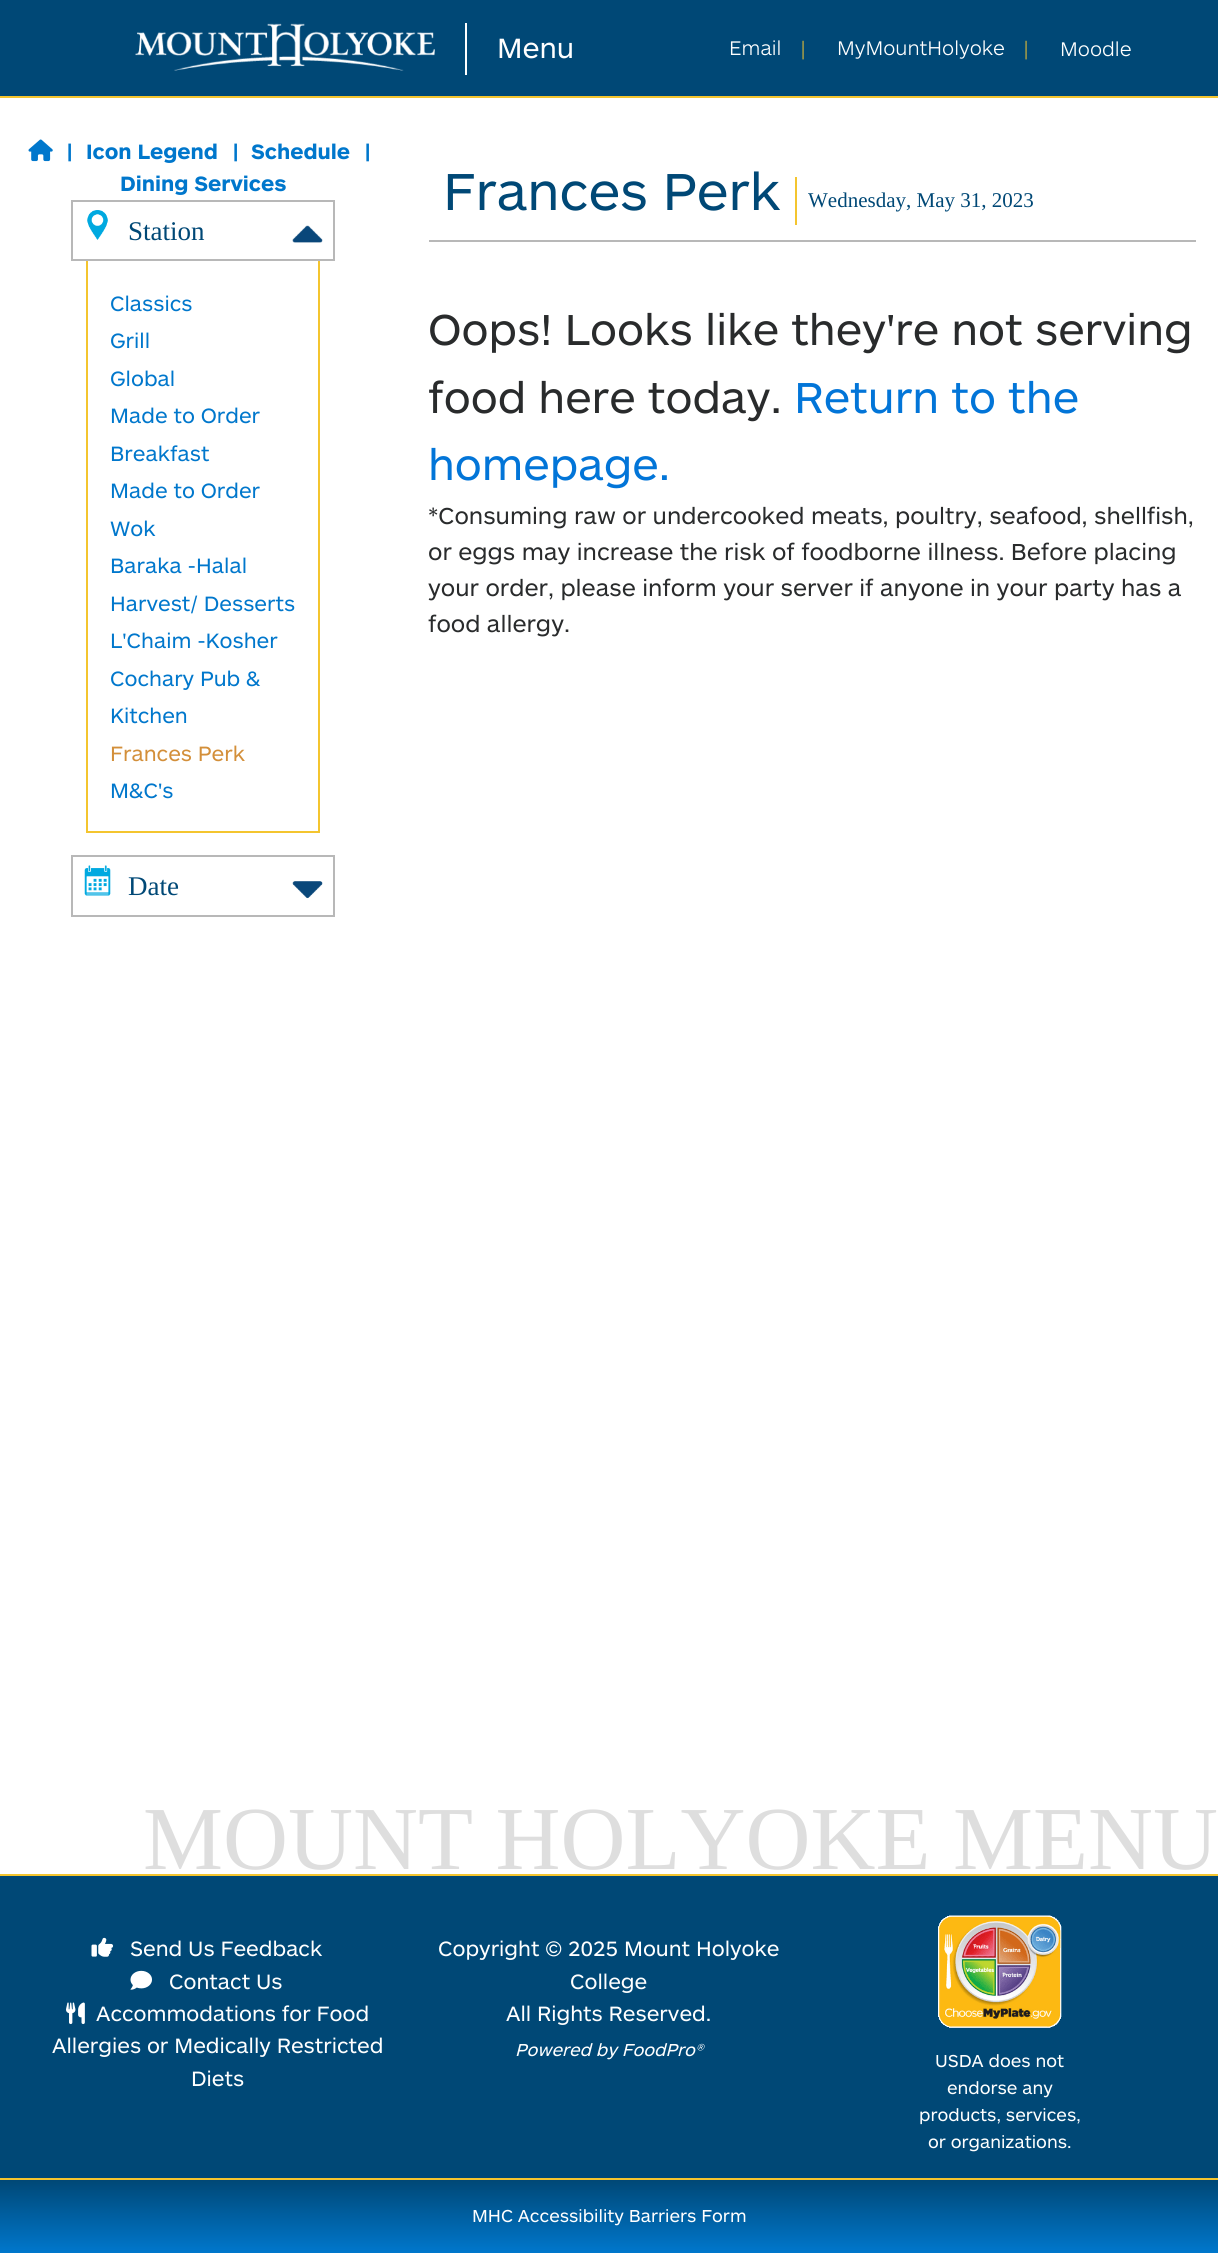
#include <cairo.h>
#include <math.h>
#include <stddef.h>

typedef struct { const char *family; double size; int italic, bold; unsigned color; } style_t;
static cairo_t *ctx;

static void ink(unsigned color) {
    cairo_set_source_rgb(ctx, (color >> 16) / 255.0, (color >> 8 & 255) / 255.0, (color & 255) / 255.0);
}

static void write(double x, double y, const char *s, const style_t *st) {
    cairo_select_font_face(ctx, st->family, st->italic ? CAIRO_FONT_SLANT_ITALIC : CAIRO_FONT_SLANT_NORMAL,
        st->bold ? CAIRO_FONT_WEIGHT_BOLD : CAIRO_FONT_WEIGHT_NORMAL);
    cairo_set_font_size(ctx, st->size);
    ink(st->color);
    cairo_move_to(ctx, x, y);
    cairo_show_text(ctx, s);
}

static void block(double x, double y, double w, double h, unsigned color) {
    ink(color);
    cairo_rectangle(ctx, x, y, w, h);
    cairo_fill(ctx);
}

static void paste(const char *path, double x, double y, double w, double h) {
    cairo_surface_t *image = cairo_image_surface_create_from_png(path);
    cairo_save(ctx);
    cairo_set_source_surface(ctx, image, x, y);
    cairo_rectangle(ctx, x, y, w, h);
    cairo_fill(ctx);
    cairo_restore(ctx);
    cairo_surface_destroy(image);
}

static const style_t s1 = {"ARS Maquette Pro", 29, 0, 0, 0xffffff};
static const style_t s2 = {"ARS Maquette Pro Light", 20.5, 0, 0, 0xffffff};
static const style_t s3 = {"Liberation Serif", 20.5, 0, 0, 0xf4c52f};
static const style_t s4 = {"ARS Maquette Pro", 21.6, 0, 1, 0x0077cc};
static const style_t s5 = {"Liberation Serif", 27, 0, 0, 0x004876};
static const style_t s6 = {"ARS Maquette Pro", 21.6, 0, 0, 0x0077cc};
static const style_t s7 = {"ARS Maquette Pro", 21.6, 0, 0, 0xd38f3a};
static const style_t s8 = {"ARS Maquette Pro", 54, 0, 0, 0x004876};
static const style_t s9 = {"Liberation Serif", 21, 0, 0, 0x004876};
static const style_t s10 = {"ARS Maquette Pro", 45, 0, 0, 0x292b2c};
static const style_t s11 = {"ARS Maquette Pro", 45, 0, 0, 0x0275d8};
static const style_t s12 = {"ARS Maquette Pro", 24, 0, 0, 0x292b2c};
static const style_t s13 = {"Liberation Serif", 90, 0, 0, 0xdedede};
static const style_t s14 = {"ARS Maquette Pro", 21.6, 0, 0, 0xffffff};
static const style_t s15 = {"ARS Maquette Pro", 18, 1, 0, 0xffffff};
static const style_t s16 = {"ARS Maquette Pro", 18, 0, 0, 0xffffff};

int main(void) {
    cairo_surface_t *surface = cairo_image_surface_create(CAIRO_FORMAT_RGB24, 1218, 2253);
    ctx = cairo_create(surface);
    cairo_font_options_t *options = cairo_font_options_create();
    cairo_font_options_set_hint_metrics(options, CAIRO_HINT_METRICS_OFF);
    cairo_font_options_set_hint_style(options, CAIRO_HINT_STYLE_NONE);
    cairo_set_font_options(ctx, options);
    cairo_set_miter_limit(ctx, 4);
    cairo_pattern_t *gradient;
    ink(0xffffff);
    cairo_paint(ctx);
    block(0, 0, 1218, 96, 0x004876);
    block(0, 96, 1218, 2, 0xf4c52f);
    block(465, 23, 2, 52, 0xffffff);
    paste("pic1.png", 135, 23, 300, 48);
    write(497, 58, "Menu", &s1);
    write(729, 55, "Email", &s2);
    write(801, 55, "|", &s3);
    write(837, 55, "MyMountHolyoke", &s2);
    write(1024, 55, "|", &s3);
    write(1060, 56, "Moodle", &s2);
    paste("pic2.png", 28, 139, 25, 23);
    write(67, 159, "|", &s4);
    write(86, 159, "Icon Legend", &s4);
    write(233, 159, "|", &s4);
    write(251, 159, "Schedule", &s4);
    write(365, 159, "|", &s4);
    write(120, 191, "Dining Services", &s4);
    cairo_rectangle(ctx, 72, 201, 262, 59);
    ink(0xb8b8b8);
    cairo_stroke(ctx);
    paste("pic3.png", 87, 210, 21, 30);
    write(128, 240, "Station", &s5);
    paste("pic4.png", 292, 225, 31, 18);
    block(318, 261, 2, 572, 0xf4c52f);
    block(86, 831, 234, 2, 0xf4c52f);
    block(86, 261, 2, 572, 0xf4c52f);
    write(110, 311, "Classics", &s6);
    write(110, 348, "Grill", &s6);
    write(110, 386, "Global", &s6);
    write(110, 423, "Made to Order", &s6);
    write(110, 461, "Breakfast", &s6);
    write(110, 498, "Made to Order", &s6);
    write(110, 536, "Wok", &s6);
    write(110, 573, "Baraka -Halal", &s6);
    write(110, 611, "Harvest/ Desserts", &s6);
    write(110, 648, "L'Chaim -Kosher", &s6);
    write(110, 686, "Cochary Pub &", &s6);
    write(110, 723, "Kitchen", &s6);
    write(110, 761, "Frances Perk", &s7);
    write(110, 798, "M&C's", &s6);
    cairo_rectangle(ctx, 72, 856, 262, 60);
    ink(0xb8b8b8);
    cairo_stroke(ctx);
    paste("pic5.png", 84, 865, 27, 31);
    write(128, 895, "Date", &s5);
    paste("pic6.png", 292, 881, 31, 18);
    block(429, 240, 767, 2, 0xb8b8b8);
    write(443, 210, "Frances Perk", &s8);
    block(795, 177, 2, 48, 0xf4c52f);
    write(808, 207, "Wednesday, May 31, 2023", &s9);
    write(428, 345, "Oops! Looks like they're not serving", &s10);
    write(428, 413, "food here today.", &s10);
    write(794, 413, "Return to the", &s11);
    write(428, 480, "homepage.", &s11);
    write(428, 524, "*Consuming raw or undercooked meats, poultry, seafood, shellfish,", &s12);
    write(428, 560, "or eggs may increase the risk of foodborne illness. Before placing", &s12);
    write(428, 596, "your order, please inform your server if anyone in your party has a", &s12);
    write(428, 632, "food allergy.", &s12);
    write(143, 1869, "MOUNT HOLYOKE MENU", &s13);
    block(0, 1876, 1218, 302, 0x004876);
    block(0, 1874, 1218, 2, 0xf4c52f);
    paste("pic7.png", 91, 1937, 23, 20);
    write(130, 1956, "Send Us Feedback", &s14);
    paste("pic8.png", 130, 1970, 22, 20);
    write(169, 1989, "Contact Us", &s14);
    paste("pic9.png", 66, 2002, 19, 23);
    write(96, 2021, "Accommodations for Food", &s14);
    write(52, 2053, "Allergies or Medically Restricted", &s14);
    write(191, 2086, "Diets", &s14);
    write(438, 1956, "Copyright © 2025 Mount Holyoke", &s14);
    write(570, 1989, "College", &s14);
    write(506, 2021, "All Rights Reserved.", &s14);
    write(515, 2056, "Powered by FoodPro®", &s15);
    paste("pic10.png", 938, 1915, 124, 113);
    write(935, 2067, "USDA does not", &s16);
    write(947, 2094, "endorse any", &s16);
    write(919, 2121, "products, services,", &s16);
    write(928, 2148, "or organizations.", &s16);
    gradient = cairo_pattern_create_linear(609, 2180, 609, 2253);
    cairo_pattern_add_color_stop_rgba(gradient, 0, 0, 0.282, 0.463, 1);
    cairo_pattern_add_color_stop_rgba(gradient, 1, 0, 0.467, 0.8, 1);
    cairo_set_source(ctx, gradient);
    cairo_pattern_destroy(gradient);
    cairo_rectangle(ctx, 0, 2180, 1218, 73);
    cairo_fill(ctx);
    block(0, 2178, 1218, 2, 0xf4c52f);
    write(472, 2222, "MHC Accessibility Barriers Form", &s16);
    cairo_surface_write_to_png(surface, "screenshot.png");
    cairo_font_options_destroy(options);
    cairo_destroy(ctx);
    cairo_surface_destroy(surface);
    return 0;
}
